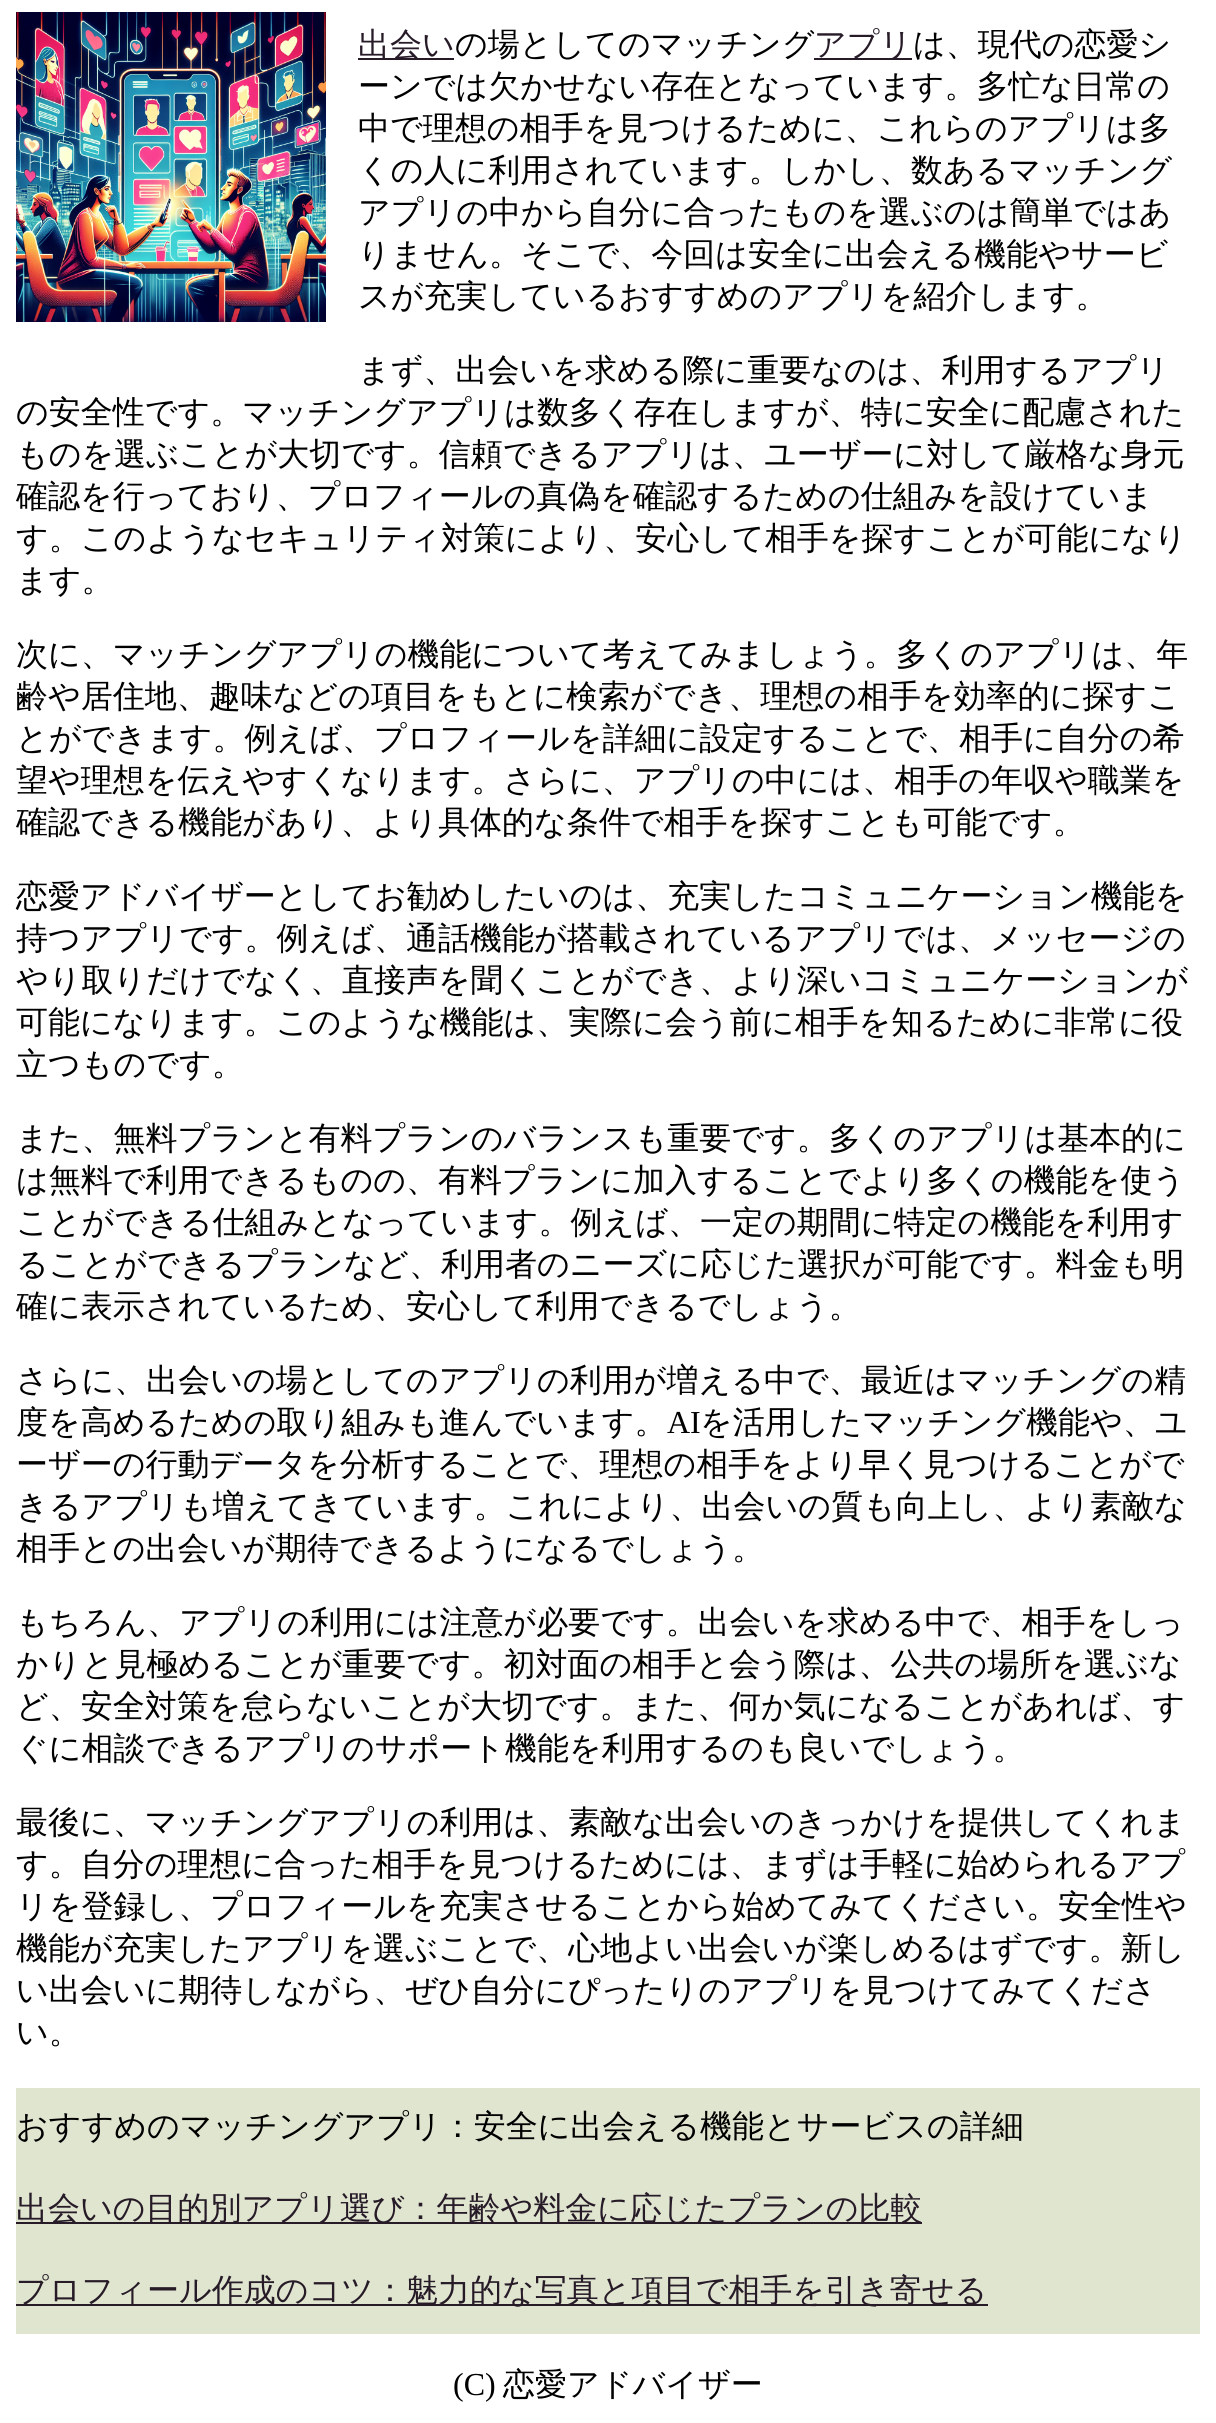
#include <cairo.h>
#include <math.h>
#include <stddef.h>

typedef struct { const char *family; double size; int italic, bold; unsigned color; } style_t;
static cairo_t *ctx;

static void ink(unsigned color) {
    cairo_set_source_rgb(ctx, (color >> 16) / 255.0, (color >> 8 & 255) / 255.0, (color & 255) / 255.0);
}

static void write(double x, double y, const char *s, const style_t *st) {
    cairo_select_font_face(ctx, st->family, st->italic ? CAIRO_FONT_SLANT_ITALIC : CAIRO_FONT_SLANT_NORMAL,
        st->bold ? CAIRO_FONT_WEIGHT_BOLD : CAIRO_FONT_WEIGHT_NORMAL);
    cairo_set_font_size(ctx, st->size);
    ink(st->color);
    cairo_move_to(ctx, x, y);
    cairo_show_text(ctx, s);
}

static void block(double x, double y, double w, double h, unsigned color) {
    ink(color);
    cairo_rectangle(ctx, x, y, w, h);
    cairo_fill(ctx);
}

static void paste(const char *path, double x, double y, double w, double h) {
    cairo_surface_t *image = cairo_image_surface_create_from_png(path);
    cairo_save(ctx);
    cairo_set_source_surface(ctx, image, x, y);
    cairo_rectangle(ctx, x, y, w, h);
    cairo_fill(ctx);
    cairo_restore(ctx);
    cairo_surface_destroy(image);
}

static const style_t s1 = {"WenQuanYi Zen Hei Medium", 32, 0, 0, 0x271b28};
static const style_t s2 = {"WenQuanYi Zen Hei Medium", 32, 0, 0, 0x000000};
static const style_t s3 = {"Liberation Serif", 32, 0, 0, 0x000000};

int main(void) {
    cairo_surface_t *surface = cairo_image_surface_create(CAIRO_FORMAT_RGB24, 1216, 2423);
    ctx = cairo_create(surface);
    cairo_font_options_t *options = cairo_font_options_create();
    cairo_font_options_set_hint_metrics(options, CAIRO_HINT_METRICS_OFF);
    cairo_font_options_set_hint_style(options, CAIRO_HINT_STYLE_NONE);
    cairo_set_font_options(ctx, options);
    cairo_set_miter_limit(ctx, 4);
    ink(0xffffff);
    cairo_paint(ctx);
    paste("pic1.png", 16, 12, 310, 310);
    block(358, 58, 96, 2, 0x271b28);
    write(358, 55, "出会い", &s1);
    write(455, 55, "の場としてのマッチング", &s2);
    block(814, 58, 98, 2, 0x271b28);
    write(814, 55, "アプリ", &s1);
    write(913, 55, "は、現代の恋愛シ", &s2);
    write(358, 97, "ーンでは欠かせない存在となっています。多忙な日常の", &s2);
    write(358, 139, "中で理想の相手を見つけるために、これらのアプリは多", &s2);
    write(358, 181, "くの人に利用されています。しかし、数あるマッチング", &s2);
    write(358, 223, "アプリの中から自分に合ったものを選ぶのは簡単ではあ", &s2);
    write(358, 265, "りません。そこで、今回は安全に出会える機能やサービ", &s2);
    write(358, 307, "スが充実しているおすすめのアプリを紹介します。", &s2);
    write(358, 381, "まず、出会いを求める際に重要なのは、利用するアプリ", &s2);
    write(16, 423, "の安全性です。マッチングアプリは数多く存在しますが、特に安全に配慮された", &s2);
    write(16, 465, "ものを選ぶことが大切です。信頼できるアプリは、ユーザーに対して厳格な身元", &s2);
    write(16, 507, "確認を行っており、プロフィールの真偽を確認するための仕組みを設けていま", &s2);
    write(16, 549, "す。このようなセキュリティ対策により、安心して相手を探すことが可能になり", &s2);
    write(16, 591, "ます。", &s2);
    write(16, 665, "次に、マッチングアプリの機能について考えてみましょう。多くのアプリは、年", &s2);
    write(16, 707, "齢や居住地、趣味などの項目をもとに検索ができ、理想の相手を効率的に探すこ", &s2);
    write(16, 749, "とができます。例えば、プロフィールを詳細に設定することで、相手に自分の希", &s2);
    write(16, 791, "望や理想を伝えやすくなります。さらに、アプリの中には、相手の年収や職業を", &s2);
    write(16, 833, "確認できる機能があり、より具体的な条件で相手を探すことも可能です。", &s2);
    write(16, 907, "恋愛アドバイザーとしてお勧めしたいのは、充実したコミュニケーション機能を", &s2);
    write(16, 949, "持つアプリです。例えば、通話機能が搭載されているアプリでは、メッセージの", &s2);
    write(16, 991, "やり取りだけでなく、直接声を聞くことができ、より深いコミュニケーションが", &s2);
    write(16, 1033, "可能になります。このような機能は、実際に会う前に相手を知るために非常に役", &s2);
    write(16, 1075, "立つものです。", &s2);
    write(16, 1149, "また、無料プランと有料プランのバランスも重要です。多くのアプリは基本的に", &s2);
    write(16, 1191, "は無料で利用できるものの、有料プランに加入することでより多くの機能を使う", &s2);
    write(16, 1233, "ことができる仕組みとなっています。例えば、一定の期間に特定の機能を利用す", &s2);
    write(16, 1275, "ることができるプランなど、利用者のニーズに応じた選択が可能です。料金も明", &s2);
    write(16, 1317, "確に表示されているため、安心して利用できるでしょう。", &s2);
    write(16, 1391, "さらに、出会いの場としてのアプリの利用が増える中で、最近はマッチングの精", &s2);
    write(16, 1433, "度を高めるための取り組みも進んでいます。", &s2);
    write(667, 1433, "AI", &s3);
    write(700, 1433, "を活用したマッチング機能や、ユ", &s2);
    write(16, 1475, "ーザーの行動データを分析することで、理想の相手をより早く見つけることがで", &s2);
    write(16, 1517, "きるアプリも増えてきています。これにより、出会いの質も向上し、より素敵な", &s2);
    write(16, 1559, "相手との出会いが期待できるようになるでしょう。", &s2);
    write(16, 1633, "もちろん、アプリの利用には注意が必要です。出会いを求める中で、相手をしっ", &s2);
    write(16, 1675, "かりと見極めることが重要です。初対面の相手と会う際は、公共の場所を選ぶな", &s2);
    write(16, 1717, "ど、安全対策を怠らないことが大切です。また、何か気になることがあれば、す", &s2);
    write(16, 1759, "ぐに相談できるアプリのサポート機能を利用するのも良いでしょう。", &s2);
    write(16, 1833, "最後に、マッチングアプリの利用は、素敵な出会いのきっかけを提供してくれま", &s2);
    write(16, 1875, "す。自分の理想に合った相手を見つけるためには、まずは手軽に始められるアプ", &s2);
    write(16, 1917, "リを登録し、プロフィールを充実させることから始めてみてください。安全性や", &s2);
    write(16, 1959, "機能が充実したアプリを選ぶことで、心地よい出会いが楽しめるはずです。新し", &s2);
    write(16, 2001, "い出会いに期待しながら、ぜひ自分にぴったりのアプリを見つけてみてくださ", &s2);
    write(16, 2043, "い。", &s2);
    block(16, 2088, 1184, 246, 0xdfe5cf);
    write(16, 2137, "おすすめのマッチングアプリ：安全に出会える機能とサービスの詳細", &s2);
    block(16, 2222, 906, 2, 0x271b28);
    write(16, 2219, "出会いの目的別アプリ選び：年齢や料金に応じたプランの比較", &s1);
    block(16, 2304, 972, 2, 0x271b28);
    write(16, 2301, "プロフィール作成のコツ：魅力的な写真と項目で相手を引き寄せる", &s1);
    write(453, 2395, "(C)", &s3);
    write(503, 2395, "恋愛アドバイザー", &s2);
    cairo_surface_write_to_png(surface, "screenshot.png");
    cairo_font_options_destroy(options);
    cairo_destroy(ctx);
    cairo_surface_destroy(surface);
    return 0;
}
